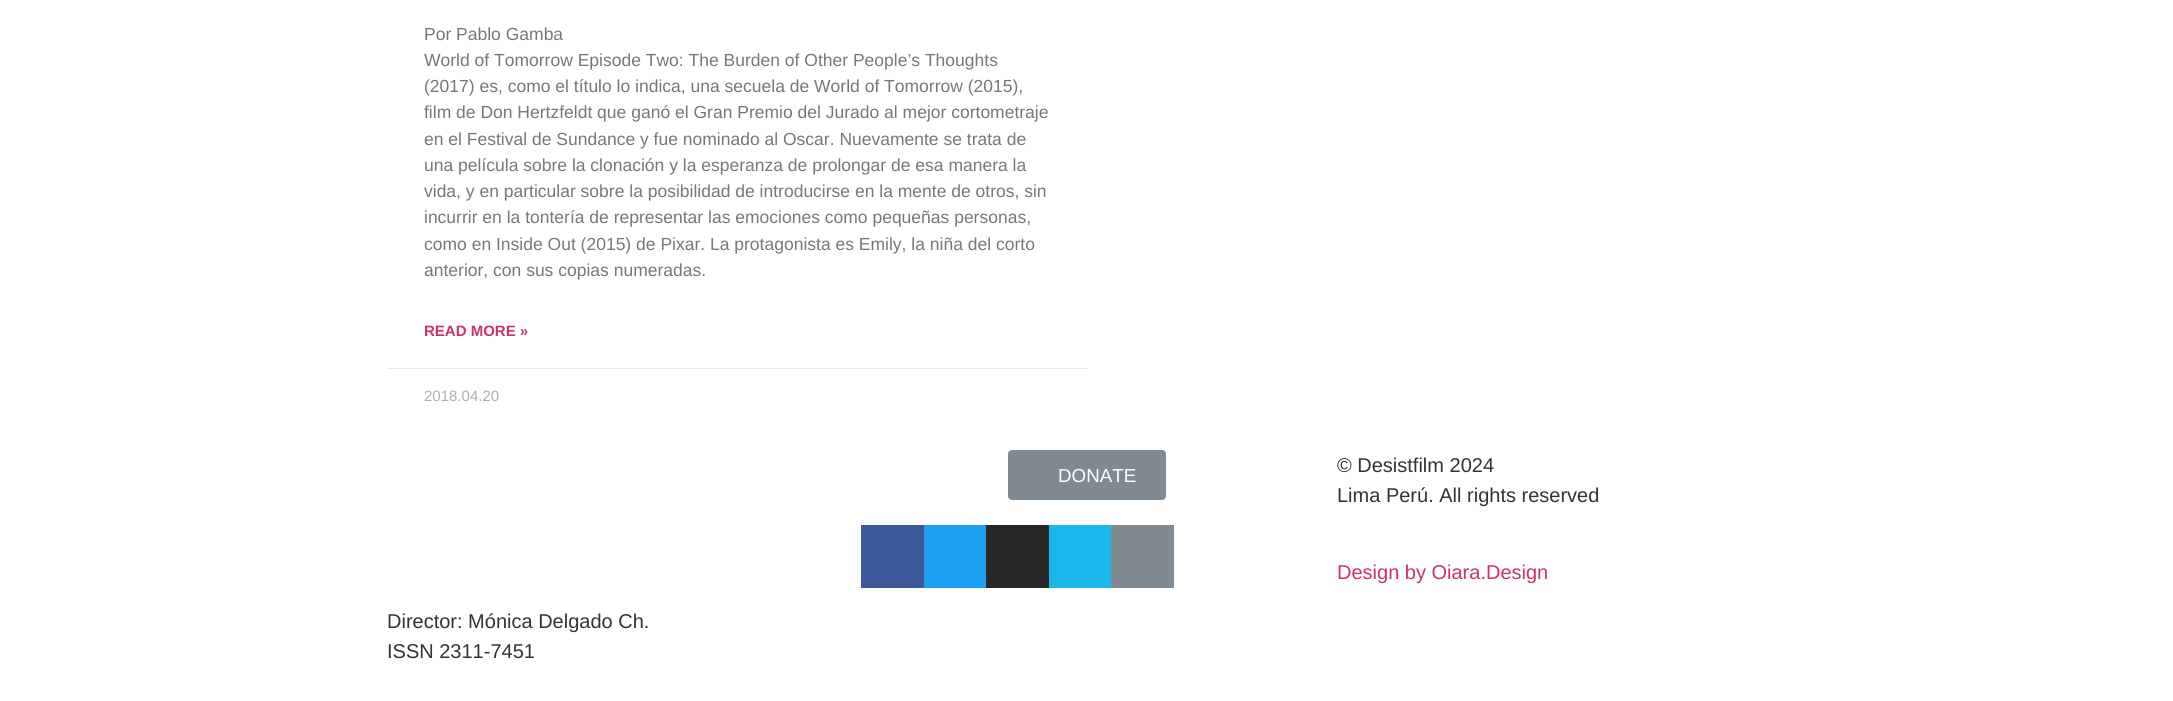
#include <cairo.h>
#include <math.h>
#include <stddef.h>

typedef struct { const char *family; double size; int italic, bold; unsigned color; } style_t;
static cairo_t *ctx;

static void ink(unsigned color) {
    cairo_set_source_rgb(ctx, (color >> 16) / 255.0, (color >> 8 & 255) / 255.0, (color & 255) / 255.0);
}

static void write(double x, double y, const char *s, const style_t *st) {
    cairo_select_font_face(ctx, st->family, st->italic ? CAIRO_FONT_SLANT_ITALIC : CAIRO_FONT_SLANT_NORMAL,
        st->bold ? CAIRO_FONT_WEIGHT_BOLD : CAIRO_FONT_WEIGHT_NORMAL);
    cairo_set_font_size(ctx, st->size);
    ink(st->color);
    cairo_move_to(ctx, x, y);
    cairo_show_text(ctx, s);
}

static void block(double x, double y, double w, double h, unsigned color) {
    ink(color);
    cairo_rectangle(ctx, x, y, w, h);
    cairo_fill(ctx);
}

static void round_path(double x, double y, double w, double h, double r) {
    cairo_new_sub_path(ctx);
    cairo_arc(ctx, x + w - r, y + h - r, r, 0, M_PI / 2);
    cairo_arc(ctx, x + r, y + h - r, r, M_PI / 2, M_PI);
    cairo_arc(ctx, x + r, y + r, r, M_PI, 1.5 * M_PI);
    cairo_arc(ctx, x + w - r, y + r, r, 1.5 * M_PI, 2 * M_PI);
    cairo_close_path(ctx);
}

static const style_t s1 = {"Liberation Sans", 17.5, 0, 0, 0x777777};
static const style_t s2 = {"Liberation Sans", 15, 0, 1, 0xcc3366};
static const style_t s3 = {"Liberation Sans", 15, 0, 0, 0xadadad};
static const style_t s4 = {"Liberation Sans", 18.75, 0, 0, 0xffffff};
static const style_t s5 = {"Liberation Sans", 20, 0, 0, 0x333333};
static const style_t s6 = {"Liberation Sans", 20, 0, 0, 0xcc3366};

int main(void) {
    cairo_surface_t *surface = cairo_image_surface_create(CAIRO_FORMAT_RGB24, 2173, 701);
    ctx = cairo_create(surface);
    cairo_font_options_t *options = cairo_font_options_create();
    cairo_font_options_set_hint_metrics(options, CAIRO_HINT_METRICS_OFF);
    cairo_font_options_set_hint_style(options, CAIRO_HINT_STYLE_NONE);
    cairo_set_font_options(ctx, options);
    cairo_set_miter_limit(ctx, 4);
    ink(0xffffff);
    cairo_paint(ctx);
    write(424, 40, "Por Pablo Gamba", &s1);
    write(424, 66, "World of Tomorrow Episode Two: The Burden of Other People’s Thoughts", &s1);
    write(424, 92, "(2017) es, como el título lo indica, una secuela de World of Tomorrow (2015),", &s1);
    write(424, 118, "film de Don Hertzfeldt que ganó el Gran Premio del Jurado al mejor cortometraje", &s1);
    write(424, 145, "en el Festival de Sundance y fue nominado al Oscar. Nuevamente se trata de", &s1);
    write(424, 171, "una película sobre la clonación y la esperanza de prolongar de esa manera la", &s1);
    write(424, 197, "vida, y en particular sobre la posibilidad de introducirse en la mente de otros, sin", &s1);
    write(424, 223, "incurrir en la tontería de representar las emociones como pequeñas personas,", &s1);
    write(424, 250, "como en Inside Out (2015) de Pixar. La protagonista es Emily, la niña del corto", &s1);
    write(424, 276, "anterior, con sus copias numeradas.", &s1);
    write(424, 336, "READ MORE »", &s2);
    block(388, 368, 700, 1, 0xeaeaea);
    write(424, 401, "2018.04.20", &s3);
    ink(0x818a91);
    round_path(1008, 450, 158, 50, 4);
    cairo_fill(ctx);
    write(1058, 482, "DONATE", &s4);
    block(861, 525, 63, 63, 0x3b5998);
    block(924, 525, 62, 63, 0x1da1f2);
    block(986, 525, 63, 63, 0x262626);
    block(1049, 525, 62, 63, 0x1ab7ea);
    block(1111, 525, 63, 63, 0x818a91);
    write(1337, 472, "© Desistfilm 2024", &s5);
    write(1337, 502, "Lima Perú. All rights reserved", &s5);
    write(1337, 579, "Design by Oiara.Design", &s6);
    write(387, 628, "Director: Mónica Delgado Ch.", &s5);
    write(387, 658, "ISSN 2311-7451", &s5);
    cairo_surface_write_to_png(surface, "screenshot.png");
    cairo_font_options_destroy(options);
    cairo_destroy(ctx);
    cairo_surface_destroy(surface);
    return 0;
}
